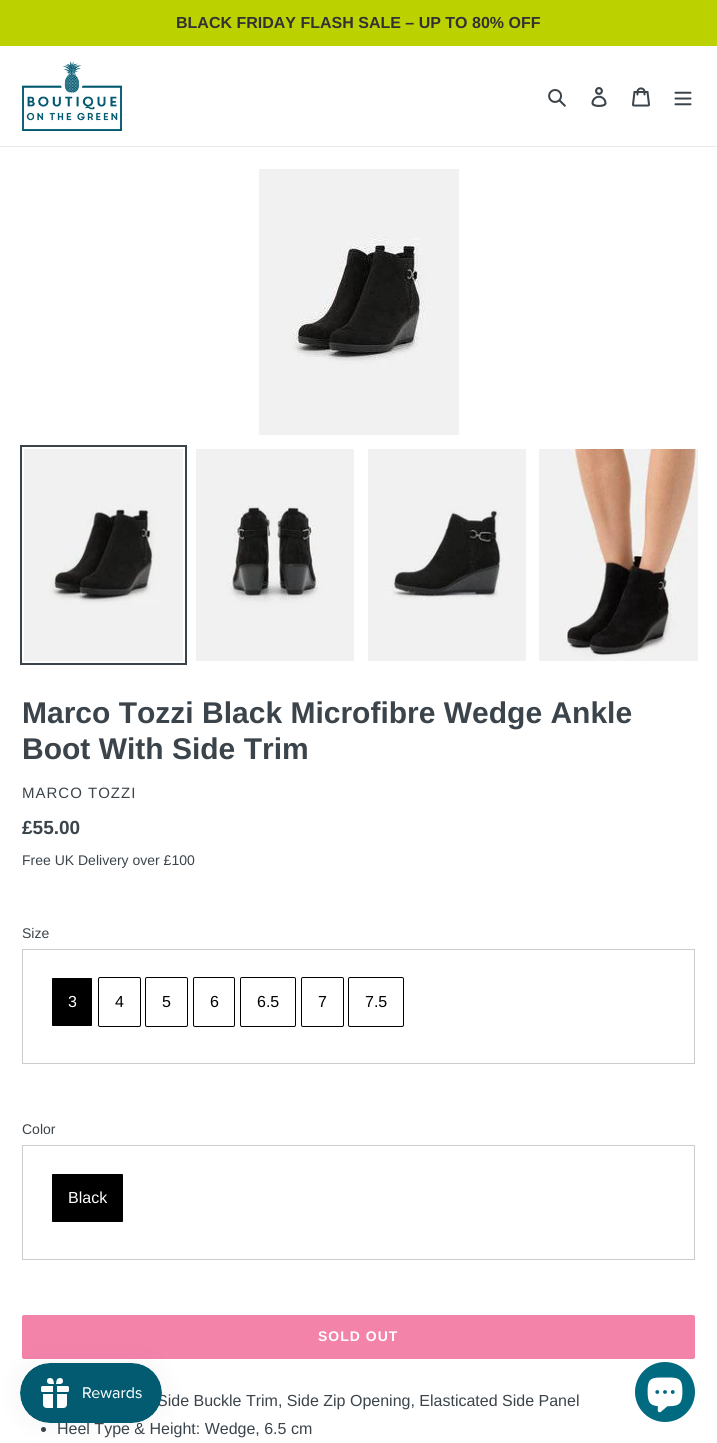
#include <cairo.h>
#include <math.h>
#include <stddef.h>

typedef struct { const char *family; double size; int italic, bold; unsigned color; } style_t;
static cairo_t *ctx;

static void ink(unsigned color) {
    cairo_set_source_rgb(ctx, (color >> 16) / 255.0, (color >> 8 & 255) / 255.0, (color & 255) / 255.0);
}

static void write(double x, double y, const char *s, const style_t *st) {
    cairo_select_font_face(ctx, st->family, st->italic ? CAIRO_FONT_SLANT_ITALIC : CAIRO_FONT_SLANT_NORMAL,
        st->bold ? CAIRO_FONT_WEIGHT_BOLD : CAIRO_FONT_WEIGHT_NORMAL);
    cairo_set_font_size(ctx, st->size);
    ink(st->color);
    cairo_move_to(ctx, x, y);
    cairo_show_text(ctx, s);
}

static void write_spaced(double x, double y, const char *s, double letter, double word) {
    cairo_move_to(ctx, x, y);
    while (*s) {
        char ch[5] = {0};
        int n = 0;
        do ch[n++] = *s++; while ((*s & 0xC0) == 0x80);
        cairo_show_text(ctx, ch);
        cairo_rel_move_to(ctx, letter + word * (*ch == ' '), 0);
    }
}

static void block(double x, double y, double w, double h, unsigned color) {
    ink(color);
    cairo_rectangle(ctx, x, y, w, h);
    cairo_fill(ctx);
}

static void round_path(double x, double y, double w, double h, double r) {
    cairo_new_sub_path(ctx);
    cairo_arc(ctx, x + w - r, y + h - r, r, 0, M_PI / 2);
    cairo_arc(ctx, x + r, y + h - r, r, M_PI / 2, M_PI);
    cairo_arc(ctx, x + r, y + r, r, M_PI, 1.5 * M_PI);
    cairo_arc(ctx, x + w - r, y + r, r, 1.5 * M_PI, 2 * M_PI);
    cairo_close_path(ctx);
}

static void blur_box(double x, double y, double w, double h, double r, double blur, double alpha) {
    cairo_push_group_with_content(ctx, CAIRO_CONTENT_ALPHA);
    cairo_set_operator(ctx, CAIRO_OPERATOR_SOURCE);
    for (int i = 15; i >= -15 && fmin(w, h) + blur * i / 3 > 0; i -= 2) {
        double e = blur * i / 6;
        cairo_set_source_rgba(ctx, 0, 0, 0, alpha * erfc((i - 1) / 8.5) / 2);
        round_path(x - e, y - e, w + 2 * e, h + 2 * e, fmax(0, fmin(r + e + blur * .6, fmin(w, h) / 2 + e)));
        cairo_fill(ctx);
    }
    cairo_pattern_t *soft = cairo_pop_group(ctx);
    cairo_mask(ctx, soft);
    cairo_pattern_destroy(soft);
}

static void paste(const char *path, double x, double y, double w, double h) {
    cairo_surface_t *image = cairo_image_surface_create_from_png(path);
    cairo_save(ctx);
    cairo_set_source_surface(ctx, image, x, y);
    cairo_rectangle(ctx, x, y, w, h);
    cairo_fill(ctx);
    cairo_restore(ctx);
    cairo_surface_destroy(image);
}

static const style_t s1 = {"Liberation Sans", 16, 0, 1, 0x333232};
static const style_t s2 = {"Liberation Sans", 30, 0, 1, 0x3b444b};
static const style_t s3 = {"Liberation Sans", 19, 0, 1, 0x3b444b};
static const style_t s4 = {"Liberation Sans", 14, 0, 0, 0x3b444b};
static const style_t s5 = {"Liberation Sans", 16, 0, 0, 0xffffff};
static const style_t s6 = {"Liberation Sans", 16, 0, 0, 0x000000};
static const style_t s7 = {"Liberation Sans", 16, 0, 0, 0x3b444b};

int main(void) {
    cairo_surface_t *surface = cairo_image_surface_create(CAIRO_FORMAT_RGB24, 717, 1443);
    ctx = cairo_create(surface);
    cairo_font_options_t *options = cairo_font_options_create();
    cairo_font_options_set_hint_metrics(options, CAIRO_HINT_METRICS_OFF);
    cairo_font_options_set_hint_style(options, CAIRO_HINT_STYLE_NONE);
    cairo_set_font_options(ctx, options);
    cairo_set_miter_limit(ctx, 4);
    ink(0xffffff);
    cairo_paint(ctx);
    block(0, 0, 717, 46, 0xbcd200);
    write(176, 28, "BLACK FRIDAY FLASH SALE – UP TO 80% OFF", &s1);
    block(0, 146, 717, 1, 0xebebeb);
    paste("pic1.png", 22, 61, 100, 70);
    paste("pic2.png", 548, 89, 18, 18);
    paste("pic3.png", 591, 87, 16, 20);
    paste("pic4.png", 632, 87, 18, 20);
    paste("pic5.png", 674, 91, 18, 15);
    paste("pic6.png", 259, 169, 200, 266);
    cairo_rectangle(ctx, 21, 446, 165, 218);
    ink(0x3b444b);
    cairo_stroke(ctx);
    paste("pic7.png", 24, 449, 159, 212);
    paste("pic8.png", 196, 449, 158, 212);
    paste("pic9.png", 368, 449, 158, 212);
    paste("pic10.png", 539, 449, 159, 212);
    write(22, 723, "Marco Tozzi Black Microfibre Wedge Ankle", &s2);
    write(22, 759, "Boot With Side Trim", &s2);
    cairo_select_font_face(ctx, "Liberation Sans", CAIRO_FONT_SLANT_NORMAL, CAIRO_FONT_WEIGHT_NORMAL);
    cairo_set_font_size(ctx, 15);
    write_spaced(22, 798, "MARCO TOZZI", 1, 0);
    write(22, 834, "£55.00", &s3);
    write(22, 865, "Free UK Delivery over £100", &s4);
    write(22, 938, "Size", &s4);
    cairo_rectangle(ctx, 22.5, 949.5, 672, 114);
    ink(0xcccccc);
    cairo_set_line_width(ctx, 1);
    cairo_stroke(ctx);
    ink(0x000000);
    round_path(51.5, 977.5, 41, 49, 1.5);
    cairo_fill_preserve(ctx);
    ink(0xffffff);
    cairo_stroke(ctx);
    write(68, 1007, "3", &s5);
    round_path(98.5, 977.5, 42, 49, 1.5);
    ink(0x000000);
    cairo_stroke(ctx);
    write(115, 1007, "4", &s6);
    round_path(145.5, 977.5, 42, 49, 1.5);
    cairo_stroke(ctx);
    write(162, 1007, "5", &s6);
    round_path(193.5, 977.5, 41, 49, 1.5);
    cairo_stroke(ctx);
    write(210, 1007, "6", &s6);
    round_path(240.5, 977.5, 55, 49, 1.5);
    cairo_stroke(ctx);
    write(257, 1007, "6.5", &s6);
    round_path(301.5, 977.5, 42, 49, 1.5);
    cairo_stroke(ctx);
    write(318, 1007, "7", &s6);
    round_path(348.5, 977.5, 55, 49, 1.5);
    cairo_stroke(ctx);
    write(365, 1007, "7.5", &s6);
    write(22, 1134, "Color", &s4);
    cairo_rectangle(ctx, 22.5, 1145.5, 672, 114);
    ink(0xcccccc);
    cairo_stroke(ctx);
    ink(0x000000);
    round_path(51.5, 1173.5, 72, 49, 1.5);
    cairo_fill_preserve(ctx);
    ink(0xffffff);
    cairo_stroke(ctx);
    write(68, 1203, "Black", &s5);
    ink(0xf483aa);
    round_path(22, 1315, 673, 44, 2);
    cairo_fill(ctx);
    cairo_select_font_face(ctx, "Liberation Sans", CAIRO_FONT_SLANT_NORMAL, CAIRO_FONT_WEIGHT_BOLD);
    cairo_set_font_size(ctx, 14);
    ink(0xffffff);
    write_spaced(318, 1341, "SOLD OUT", 1, 0);
    write(157, 1406, "Side Buckle Trim, Side Zip Opening, Elasticated Side Panel", &s7);
    cairo_new_path(ctx);
    cairo_arc(ctx, 43.5, 1429.5, 2.5, 0, 2 * M_PI);
    cairo_fill(ctx);
    write(57, 1434, "Heel Type & Height: Wedge, 6.5 cm", &s7);
    ink(0x000000);
    blur_box(20, 1363, 142, 60, 30, 12.5, 0.05);
    paste("pic11.png", 20, 1363, 142, 60);
    ink(0x006a81);
    cairo_arc(ctx, 665, 1392, 30, 0, 2 * M_PI);
    cairo_fill(ctx);
    paste("pic12.png", 647, 1377, 36, 36);
    cairo_surface_write_to_png(surface, "screenshot.png");
    cairo_font_options_destroy(options);
    cairo_destroy(ctx);
    cairo_surface_destroy(surface);
    return 0;
}
